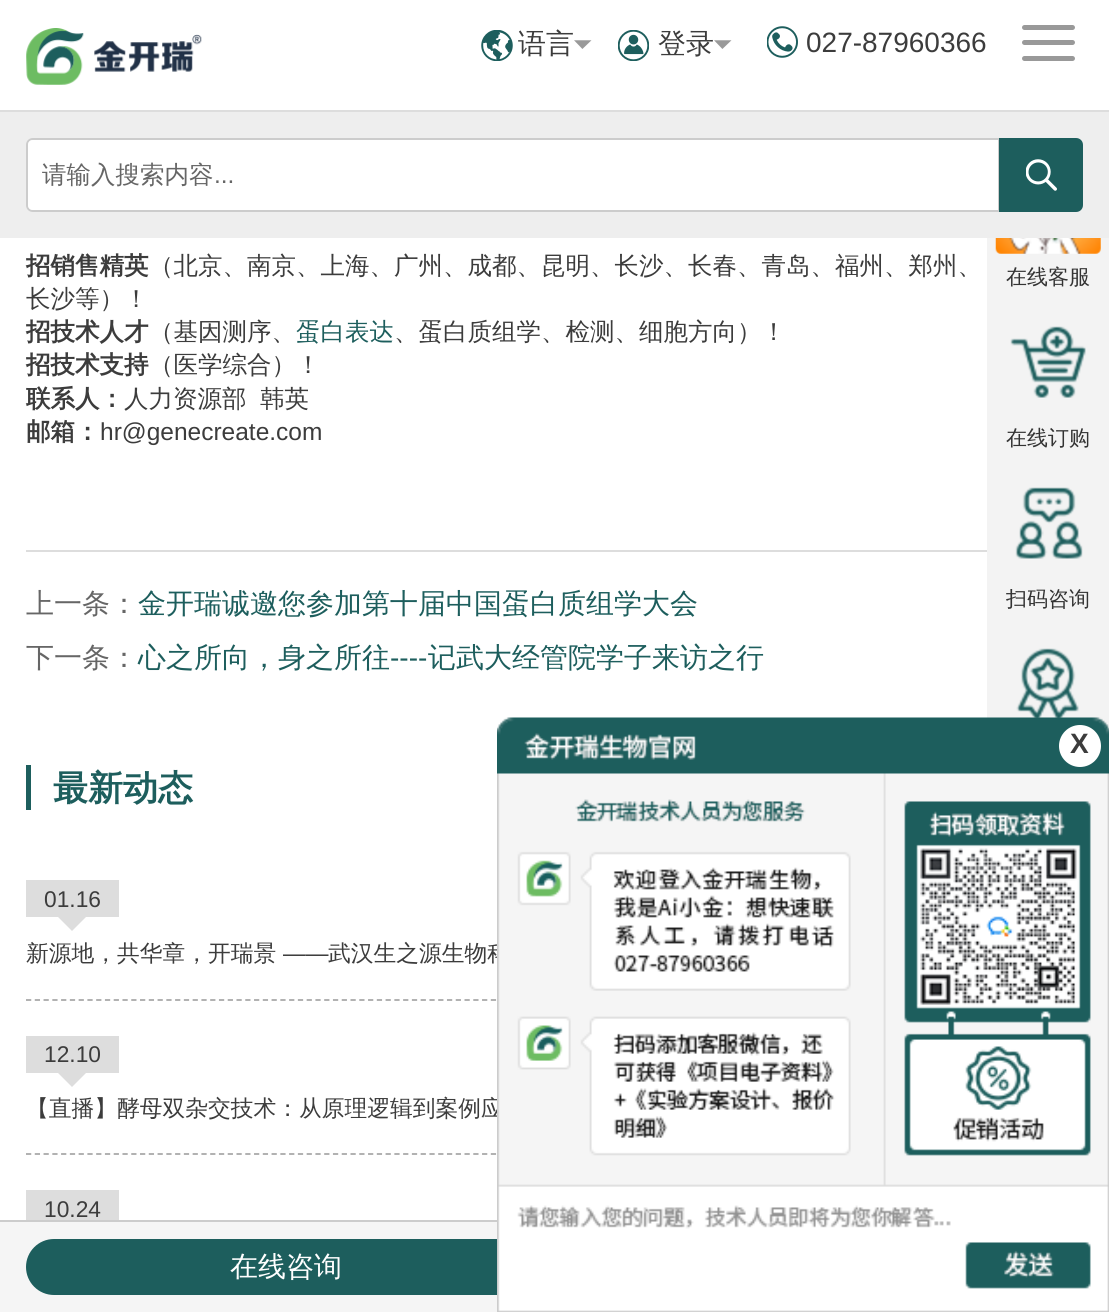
#include <cairo.h>
#include <math.h>
#include <stddef.h>

typedef struct { const char *family; double size; int italic, bold; unsigned color; } style_t;
static cairo_t *ctx;

static void ink(unsigned color) {
    cairo_set_source_rgb(ctx, (color >> 16) / 255.0, (color >> 8 & 255) / 255.0, (color & 255) / 255.0);
}

static void write(double x, double y, const char *s, const style_t *st) {
    cairo_select_font_face(ctx, st->family, st->italic ? CAIRO_FONT_SLANT_ITALIC : CAIRO_FONT_SLANT_NORMAL,
        st->bold ? CAIRO_FONT_WEIGHT_BOLD : CAIRO_FONT_WEIGHT_NORMAL);
    cairo_set_font_size(ctx, st->size);
    ink(st->color);
    cairo_move_to(ctx, x, y);
    cairo_show_text(ctx, s);
}

static void block(double x, double y, double w, double h, unsigned color) {
    ink(color);
    cairo_rectangle(ctx, x, y, w, h);
    cairo_fill(ctx);
}

static void round_path(double x, double y, double w, double h, double r) {
    cairo_new_sub_path(ctx);
    cairo_arc(ctx, x + w - r, y + h - r, r, 0, M_PI / 2);
    cairo_arc(ctx, x + r, y + h - r, r, M_PI / 2, M_PI);
    cairo_arc(ctx, x + r, y + r, r, M_PI, 1.5 * M_PI);
    cairo_arc(ctx, x + w - r, y + r, r, 1.5 * M_PI, 2 * M_PI);
    cairo_close_path(ctx);
}

static void paste(const char *path, double x, double y, double w, double h) {
    cairo_surface_t *image = cairo_image_surface_create_from_png(path);
    cairo_save(ctx);
    cairo_set_source_surface(ctx, image, x, y);
    cairo_rectangle(ctx, x, y, w, h);
    cairo_fill(ctx);
    cairo_restore(ctx);
    cairo_surface_destroy(image);
}

static const style_t s1 = {"WenQuanYi Zen Hei Medium", 28, 0, 0, 0x3c3c3c};
static const style_t s2 = {"Liberation Sans", 28, 0, 0, 0x3c3c3c};
static const style_t s3 = {"WenQuanYi Zen Hei Medium", 24.5, 0, 0, 0x666666};
static const style_t s4 = {"Liberation Sans", 24.5, 0, 0, 0x666666};
static const style_t s5 = {"WenQuanYi Zen Hei", 24.5, 0, 1, 0x3c3c3c};
static const style_t s6 = {"WenQuanYi Zen Hei Medium", 24.5, 0, 0, 0x3c3c3c};
static const style_t s7 = {"WenQuanYi Zen Hei Medium", 24.5, 0, 0, 0x1d5e5d};
static const style_t s8 = {"Liberation Sans", 24.5, 0, 0, 0x3c3c3c};
static const style_t s9 = {"WenQuanYi Zen Hei Medium", 28, 0, 0, 0x666666};
static const style_t s10 = {"WenQuanYi Zen Hei Medium", 28, 0, 0, 0x1d5e5d};
static const style_t s11 = {"Liberation Sans", 28, 0, 0, 0x1d5e5d};
static const style_t s12 = {"WenQuanYi Zen Hei", 35, 0, 1, 0x1d5e5d};
static const style_t s13 = {"Liberation Sans", 22.75, 0, 0, 0x3c3c3c};
static const style_t s14 = {"WenQuanYi Zen Hei Medium", 22.75, 0, 0, 0x3c3c3c};
static const style_t s15 = {"WenQuanYi Zen Hei Medium", 21, 0, 0, 0x333333};
static const style_t s16 = {"Liberation Sans", 28, 0, 1, 0x3c3c3c};
static const style_t s17 = {"WenQuanYi Zen Hei Medium", 28, 0, 0, 0xffffff};

int main(void) {
    cairo_surface_t *surface = cairo_image_surface_create(CAIRO_FORMAT_RGB24, 1109, 1312);
    ctx = cairo_create(surface);
    cairo_font_options_t *options = cairo_font_options_create();
    cairo_font_options_set_hint_metrics(options, CAIRO_HINT_METRICS_OFF);
    cairo_font_options_set_hint_style(options, CAIRO_HINT_STYLE_NONE);
    cairo_set_font_options(ctx, options);
    cairo_set_miter_limit(ctx, 4);
    ink(0xffffff);
    cairo_paint(ctx);
    block(0, 110, 1109, 2, 0xdddddd);
    paste("pic1.png", 26, 28, 176, 57);
    ink(0x999999);
    round_path(1022, 25, 53, 5, 2.5);
    cairo_fill(ctx);
    round_path(1022, 40, 53, 5, 2.5);
    cairo_fill(ctx);
    round_path(1022, 56, 53, 5, 2.5);
    cairo_fill(ctx);
    block(0, 112, 1109, 126, 0xeeeeee);
    paste("pic2.png", 481, 30, 32, 31);
    write(518, 53, "语言", &s1);
    paste("pic3.png", 574, 40, 18, 9);
    paste("pic4.png", 618, 30, 31, 31);
    write(658, 53, "登录", &s1);
    paste("pic3.png", 714, 40, 18, 9);
    paste("pic5.png", 767, 26, 31, 32);
    write(806, 52, "027-87960366", &s2);
    cairo_new_path(ctx);
    cairo_move_to(ctx, 33, 139);
    cairo_line_to(ctx, 998, 139);
    cairo_line_to(ctx, 998, 211);
    cairo_line_to(ctx, 33, 211);
    cairo_curve_to(ctx, 29.5, 211, 27, 208.5, 27, 205);
    cairo_line_to(ctx, 27, 145);
    cairo_curve_to(ctx, 27, 141.5, 29.5, 139, 33, 139);
    cairo_close_path(ctx);
    ink(0xcccccc);
    cairo_stroke(ctx);
    ink(0xffffff);
    cairo_new_path(ctx);
    cairo_move_to(ctx, 33, 140);
    cairo_line_to(ctx, 998, 140);
    cairo_line_to(ctx, 998, 210);
    cairo_line_to(ctx, 33, 210);
    cairo_curve_to(ctx, 30, 210, 28, 208, 28, 205);
    cairo_line_to(ctx, 28, 145);
    cairo_curve_to(ctx, 28, 142, 30, 140, 33, 140);
    cairo_close_path(ctx);
    cairo_fill(ctx);
    write(42, 183, "请输入搜索内容", &s3);
    write(214, 183, "...", &s4);
    ink(0x1d5e5d);
    cairo_new_path(ctx);
    cairo_move_to(ctx, 999, 138);
    cairo_line_to(ctx, 1076, 138);
    cairo_curve_to(ctx, 1080, 138, 1083, 141, 1083, 145);
    cairo_line_to(ctx, 1083, 205);
    cairo_curve_to(ctx, 1083, 209, 1080, 212, 1076, 212);
    cairo_line_to(ctx, 999, 212);
    cairo_close_path(ctx);
    cairo_fill(ctx);
    paste("pic6.png", 1026, 159, 31, 32);
    write(26, 274, "招销售精英", &s5);
    write(149, 274, "（北京、南京、上海、广州、成都、昆明、长沙、长春、青岛、福州、郑州、", &s6);
    write(26, 307, "长沙等）！", &s6);
    write(26, 340, "招技术人才", &s5);
    write(149, 340, "（基因测序、", &s6);
    write(296, 340, "蛋白表达", &s7);
    write(394, 340, "、蛋白质组学、检测、细胞方向）！", &s6);
    write(26, 373, "招技术支持", &s5);
    write(149, 373, "（医学综合）！", &s6);
    write(26, 407, "联系人：", &s5);
    write(124, 407, "人力资源部", &s6);
    write(260, 407, "韩英", &s6);
    write(26, 440, "邮箱：", &s5);
    write(100, 440, "hr@genecreate.com", &s8);
    block(26, 550, 961, 2, 0xdddddd);
    write(26, 613, "上一条：", &s9);
    write(138, 613, "金开瑞诚邀您参加第十届中国蛋白质组学大会", &s10);
    write(26, 667, "下一条：", &s9);
    write(138, 667, "心之所向，身之所往", &s10);
    write(390, 667, "----", &s11);
    write(428, 667, "记武大经管院学子来访之行", &s10);
    block(26, 765, 5, 45, 0x1d5e5d);
    write(53, 800, "最新动态", &s12);
    cairo_new_path(ctx);
    cairo_move_to(ctx, 26, 1000);
    cairo_line_to(ctx, 1083, 1000);
    ink(0xaaaaaa);
    cairo_set_line_width(ctx, 1.8);
    cairo_set_dash(ctx, (double[]){5.25, 3.52}, 2, 0);
    cairo_stroke(ctx);
    block(26, 880, 93, 37, 0xdddddd);
    write(44, 907, "01.16", &s13);
    ink(0xdddddd);
    cairo_new_path(ctx);
    cairo_move_to(ctx, 58, 917);
    cairo_line_to(ctx, 86, 917);
    cairo_line_to(ctx, 72, 931);
    cairo_close_path(ctx);
    cairo_fill(ctx);
    write(26, 961, "新源地，共华章，开瑞景", &s14);
    write(283, 961, "——", &s13);
    write(328, 961, "武汉生之源生物科", &s14);
    cairo_new_path(ctx);
    cairo_move_to(ctx, 26, 1154);
    cairo_line_to(ctx, 1083, 1154);
    ink(0xaaaaaa);
    cairo_stroke(ctx);
    block(26, 1036, 93, 37, 0xdddddd);
    write(44, 1062, "12.10", &s13);
    ink(0xdddddd);
    cairo_new_path(ctx);
    cairo_move_to(ctx, 58, 1073);
    cairo_line_to(ctx, 86, 1073);
    cairo_line_to(ctx, 72, 1087);
    cairo_close_path(ctx);
    cairo_fill(ctx);
    write(26, 1116, "【直播】酵母双杂交技术：从原理逻辑到案例应", &s14);
    block(26, 1190, 93, 30, 0xdddddd);
    write(44, 1217, "10.24", &s13);
    block(987, 238, 122, 494, 0xf3f3f3);
    paste("pic7.png", 995, 238, 106, 16);
    write(1006, 284, "在线客服", &s15);
    paste("pic8.png", 1010, 326, 76, 72);
    write(1006, 445, "在线订购", &s15);
    paste("pic9.png", 1015, 487, 68, 72);
    write(1006, 606, "扫码咨询", &s15);
    paste("pic10.png", 1016, 648, 63, 70);
    block(0, 1222, 497, 90, 0xf5f5f5);
    ink(0x1d5e5d);
    round_path(26, 1239, 520, 56, 28);
    cairo_fill(ctx);
    paste("pic11.png", 497, 717, 612, 595);
    ink(0xffffff);
    cairo_arc(ctx, 1080, 746, 21, 0, 2 * M_PI);
    cairo_fill(ctx);
    write(1070, 753, "X", &s16);
    block(0, 1220, 497, 2, 0xcccccc);
    write(230, 1276, "在线咨询", &s17);
    cairo_surface_write_to_png(surface, "screenshot.png");
    cairo_font_options_destroy(options);
    cairo_destroy(ctx);
    cairo_surface_destroy(surface);
    return 0;
}
